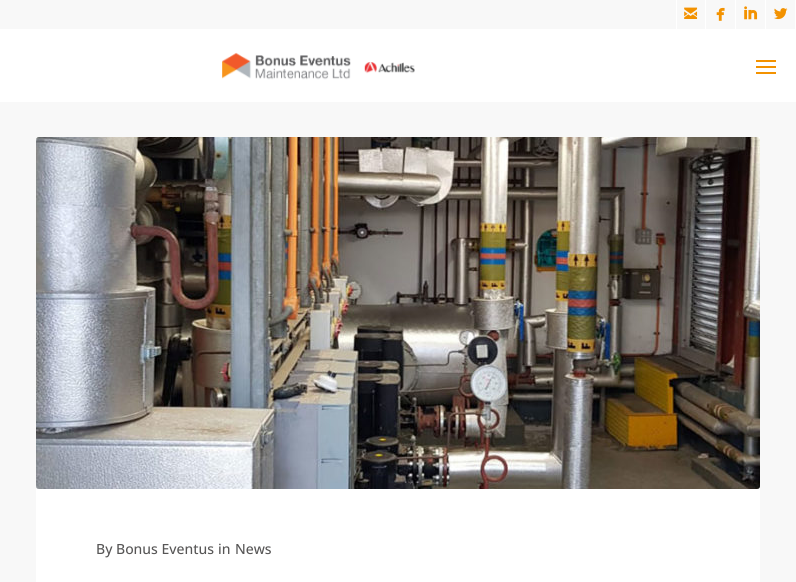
#include <cairo.h>
#include <math.h>
#include <stddef.h>

typedef struct { const char *family; double size; int italic, bold; unsigned color; } style_t;
static cairo_t *ctx;

static void ink(unsigned color) {
    cairo_set_source_rgb(ctx, (color >> 16) / 255.0, (color >> 8 & 255) / 255.0, (color & 255) / 255.0);
}

static void write(double x, double y, const char *s, const style_t *st) {
    cairo_select_font_face(ctx, st->family, st->italic ? CAIRO_FONT_SLANT_ITALIC : CAIRO_FONT_SLANT_NORMAL,
        st->bold ? CAIRO_FONT_WEIGHT_BOLD : CAIRO_FONT_WEIGHT_NORMAL);
    cairo_set_font_size(ctx, st->size);
    ink(st->color);
    cairo_move_to(ctx, x, y);
    cairo_show_text(ctx, s);
}

static void block(double x, double y, double w, double h, unsigned color) {
    ink(color);
    cairo_rectangle(ctx, x, y, w, h);
    cairo_fill(ctx);
}

static void paste(const char *path, double x, double y, double w, double h) {
    cairo_surface_t *image = cairo_image_surface_create_from_png(path);
    cairo_save(ctx);
    cairo_set_source_surface(ctx, image, x, y);
    cairo_rectangle(ctx, x, y, w, h);
    cairo_fill(ctx);
    cairo_restore(ctx);
    cairo_surface_destroy(image);
}

static const style_t s1 = {"Open Sans Medium", 14, 0, 0, 0x575656};

int main(void) {
    cairo_surface_t *surface = cairo_image_surface_create(CAIRO_FORMAT_RGB24, 796, 582);
    ctx = cairo_create(surface);
    cairo_font_options_t *options = cairo_font_options_create();
    cairo_font_options_set_hint_metrics(options, CAIRO_HINT_METRICS_OFF);
    cairo_font_options_set_hint_style(options, CAIRO_HINT_STYLE_NONE);
    cairo_set_font_options(ctx, options);
    cairo_set_miter_limit(ctx, 4);
    ink(0xffffff);
    cairo_paint(ctx);
    block(0, 0, 795, 29, 0xf8f8f8);
    block(705, 0, 1, 29, 0xffffff);
    block(676, 0, 1, 29, 0xffffff);
    paste("pic1.png", 684, 7, 14, 12);
    block(735, 0, 1, 29, 0xffffff);
    paste("pic2.png", 716, 7, 9, 14);
    block(765, 0, 1, 29, 0xffffff);
    paste("pic3.png", 744, 6, 14, 14);
    paste("pic4.png", 774, 8, 14, 12);
    paste("pic5.png", 222, 52, 193, 28);
    block(756, 60, 20, 2, 0xf39200);
    block(756, 66, 20, 2, 0xf39200);
    block(756, 72, 20, 2, 0xf39200);
    block(0, 102, 796, 480, 0xf8f8f8);
    block(36, 137, 724, 445, 0xffffff);
    paste("pic6.png", 36, 137, 724, 352);
    write(96, 554, "By", &s1);
    write(116, 554, "Bonus Eventus", &s1);
    write(218, 554, "in", &s1);
    write(235, 554, "News", &s1);
    cairo_surface_write_to_png(surface, "screenshot.png");
    cairo_font_options_destroy(options);
    cairo_destroy(ctx);
    cairo_surface_destroy(surface);
    return 0;
}
